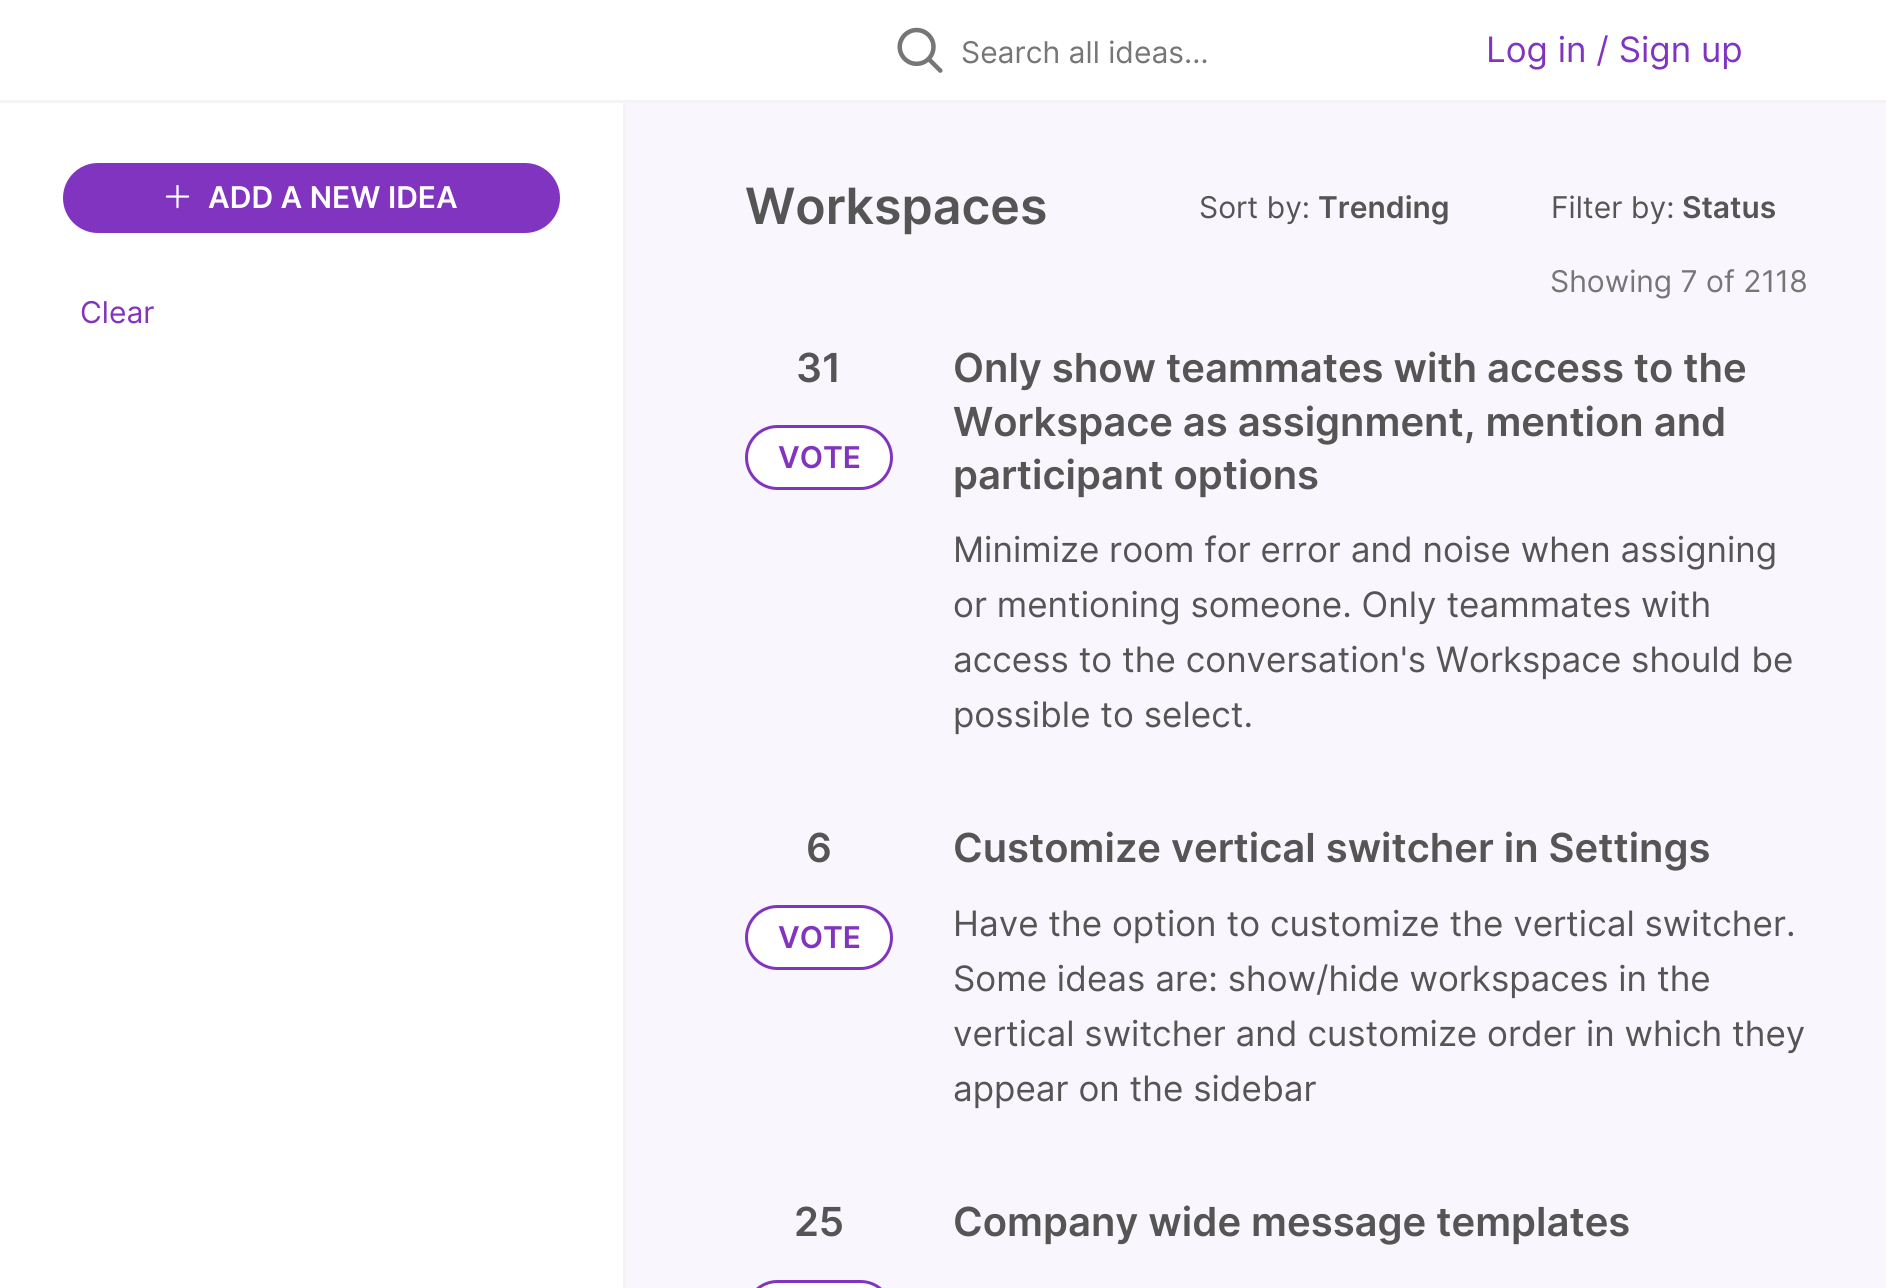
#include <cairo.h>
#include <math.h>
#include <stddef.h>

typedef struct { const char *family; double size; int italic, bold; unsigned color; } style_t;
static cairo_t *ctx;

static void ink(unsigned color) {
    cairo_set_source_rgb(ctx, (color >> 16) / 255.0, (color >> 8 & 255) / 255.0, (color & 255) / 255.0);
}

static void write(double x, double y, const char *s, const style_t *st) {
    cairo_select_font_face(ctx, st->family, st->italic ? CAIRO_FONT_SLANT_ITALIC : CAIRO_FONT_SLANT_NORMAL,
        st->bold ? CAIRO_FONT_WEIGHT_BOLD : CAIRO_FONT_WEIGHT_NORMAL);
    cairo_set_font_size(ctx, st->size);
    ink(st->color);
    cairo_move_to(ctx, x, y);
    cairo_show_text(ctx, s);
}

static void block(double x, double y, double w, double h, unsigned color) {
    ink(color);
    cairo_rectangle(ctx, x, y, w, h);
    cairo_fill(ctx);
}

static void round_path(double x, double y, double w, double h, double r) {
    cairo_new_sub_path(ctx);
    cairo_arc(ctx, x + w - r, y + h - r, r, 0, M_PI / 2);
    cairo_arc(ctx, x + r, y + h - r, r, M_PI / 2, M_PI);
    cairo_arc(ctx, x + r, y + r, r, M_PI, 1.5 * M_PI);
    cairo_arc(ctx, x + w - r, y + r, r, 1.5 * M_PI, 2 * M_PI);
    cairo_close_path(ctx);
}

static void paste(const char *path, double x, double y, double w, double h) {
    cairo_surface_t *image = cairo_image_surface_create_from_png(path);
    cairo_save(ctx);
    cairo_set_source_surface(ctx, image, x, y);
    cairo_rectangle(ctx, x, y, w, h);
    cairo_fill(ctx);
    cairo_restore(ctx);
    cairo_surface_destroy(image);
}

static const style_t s1 = {"Inter", 30, 0, 0, 0x767676};
static const style_t s2 = {"Inter", 35, 0, 0, 0x8034bf};
static const style_t s3 = {"Inter SemiBold", 30, 0, 0, 0xffffff};
static const style_t s4 = {"Inter", 30, 0, 0, 0x8034bf};
static const style_t s5 = {"Inter SemiBold", 50, 0, 0, 0x555555};
static const style_t s6 = {"Inter", 30, 0, 0, 0x555555};
static const style_t s7 = {"Inter SemiBold", 30, 0, 0, 0x555555};
static const style_t s8 = {"Inter SemiBold", 40, 0, 0, 0x555555};
static const style_t s9 = {"Inter SemiBold", 30, 0, 0, 0x8034bf};
static const style_t s10 = {"Inter", 35, 0, 0, 0x555555};

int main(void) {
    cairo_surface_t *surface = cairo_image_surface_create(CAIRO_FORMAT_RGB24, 1886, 1288);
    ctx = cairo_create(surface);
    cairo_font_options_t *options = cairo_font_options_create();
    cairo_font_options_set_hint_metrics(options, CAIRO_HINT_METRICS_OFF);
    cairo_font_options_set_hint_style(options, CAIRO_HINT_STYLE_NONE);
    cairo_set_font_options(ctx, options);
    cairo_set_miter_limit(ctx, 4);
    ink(0xfaf6fd);
    cairo_paint(ctx);
    block(0, 0, 1886, 100, 0xffffff);
    block(0, 100, 1886, 3, 0xf4f4f4);
    paste("pic1.png", 897, 27, 46, 46);
    write(961, 63, "Search all ideas…", &s1);
    write(1486, 62, "Log in / Sign up", &s2);
    block(0, 103, 623, 1185, 0xffffff);
    block(623, 103, 3, 1185, 0xf4f4f4);
    ink(0x8034bf);
    round_path(63, 163, 497, 70, 35);
    cairo_fill(ctx);
    paste("pic2.png", 165, 184, 25, 25);
    write(208, 208, "ADD A NEW IDEA", &s3);
    write(80, 323, "Clear", &s4);
    write(745, 224, "Workspaces", &s5);
    write(1199, 218, "Sort by:", &s6);
    write(1318, 218, "Trending", &s7);
    write(1551, 218, "Filter by:", &s6);
    write(1682, 218, "Status", &s7);
    write(1550, 292, "Showing 7 of 2118", &s1);
    write(796, 382, "31", &s8);
    ink(0xffffff);
    round_path(746.5, 426.5, 145, 62, 31);
    cairo_fill_preserve(ctx);
    ink(0x8034bf);
    cairo_set_line_width(ctx, 3);
    cairo_stroke(ctx);
    write(778, 468, "VOTE", &s9);
    write(953, 382, "Only show teammates with access to the", &s8);
    write(953, 436, "Workspace as assignment, mention and", &s8);
    write(953, 489, "participant options", &s8);
    write(953, 562, "Minimize room for error and noise when assigning", &s10);
    write(953, 617, "or mentioning someone. Only teammates with", &s10);
    write(953, 672, "access to the conversation's Workspace should be", &s10);
    write(953, 727, "possible to select.", &s10);
    write(806, 862, "6", &s8);
    ink(0xffffff);
    round_path(746.5, 906.5, 145, 62, 31);
    cairo_fill_preserve(ctx);
    ink(0x8034bf);
    cairo_stroke(ctx);
    write(778, 948, "VOTE", &s9);
    write(953, 862, "Customize vertical switcher in Settings", &s8);
    write(953, 936, "Have the option to customize the vertical switcher.", &s10);
    write(953, 991, "Some ideas are: show/hide workspaces in the", &s10);
    write(953, 1046, "vertical switcher and customize order in which they", &s10);
    write(953, 1101, "appear on the sidebar", &s10);
    write(794, 1236, "25", &s8);
    ink(0xffffff);
    round_path(746.5, 1281.5, 145, 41, 31);
    cairo_fill_preserve(ctx);
    ink(0x8034bf);
    cairo_stroke(ctx);
    write(953, 1236, "Company wide message templates", &s8);
    cairo_surface_write_to_png(surface, "screenshot.png");
    cairo_font_options_destroy(options);
    cairo_destroy(ctx);
    cairo_surface_destroy(surface);
    return 0;
}
